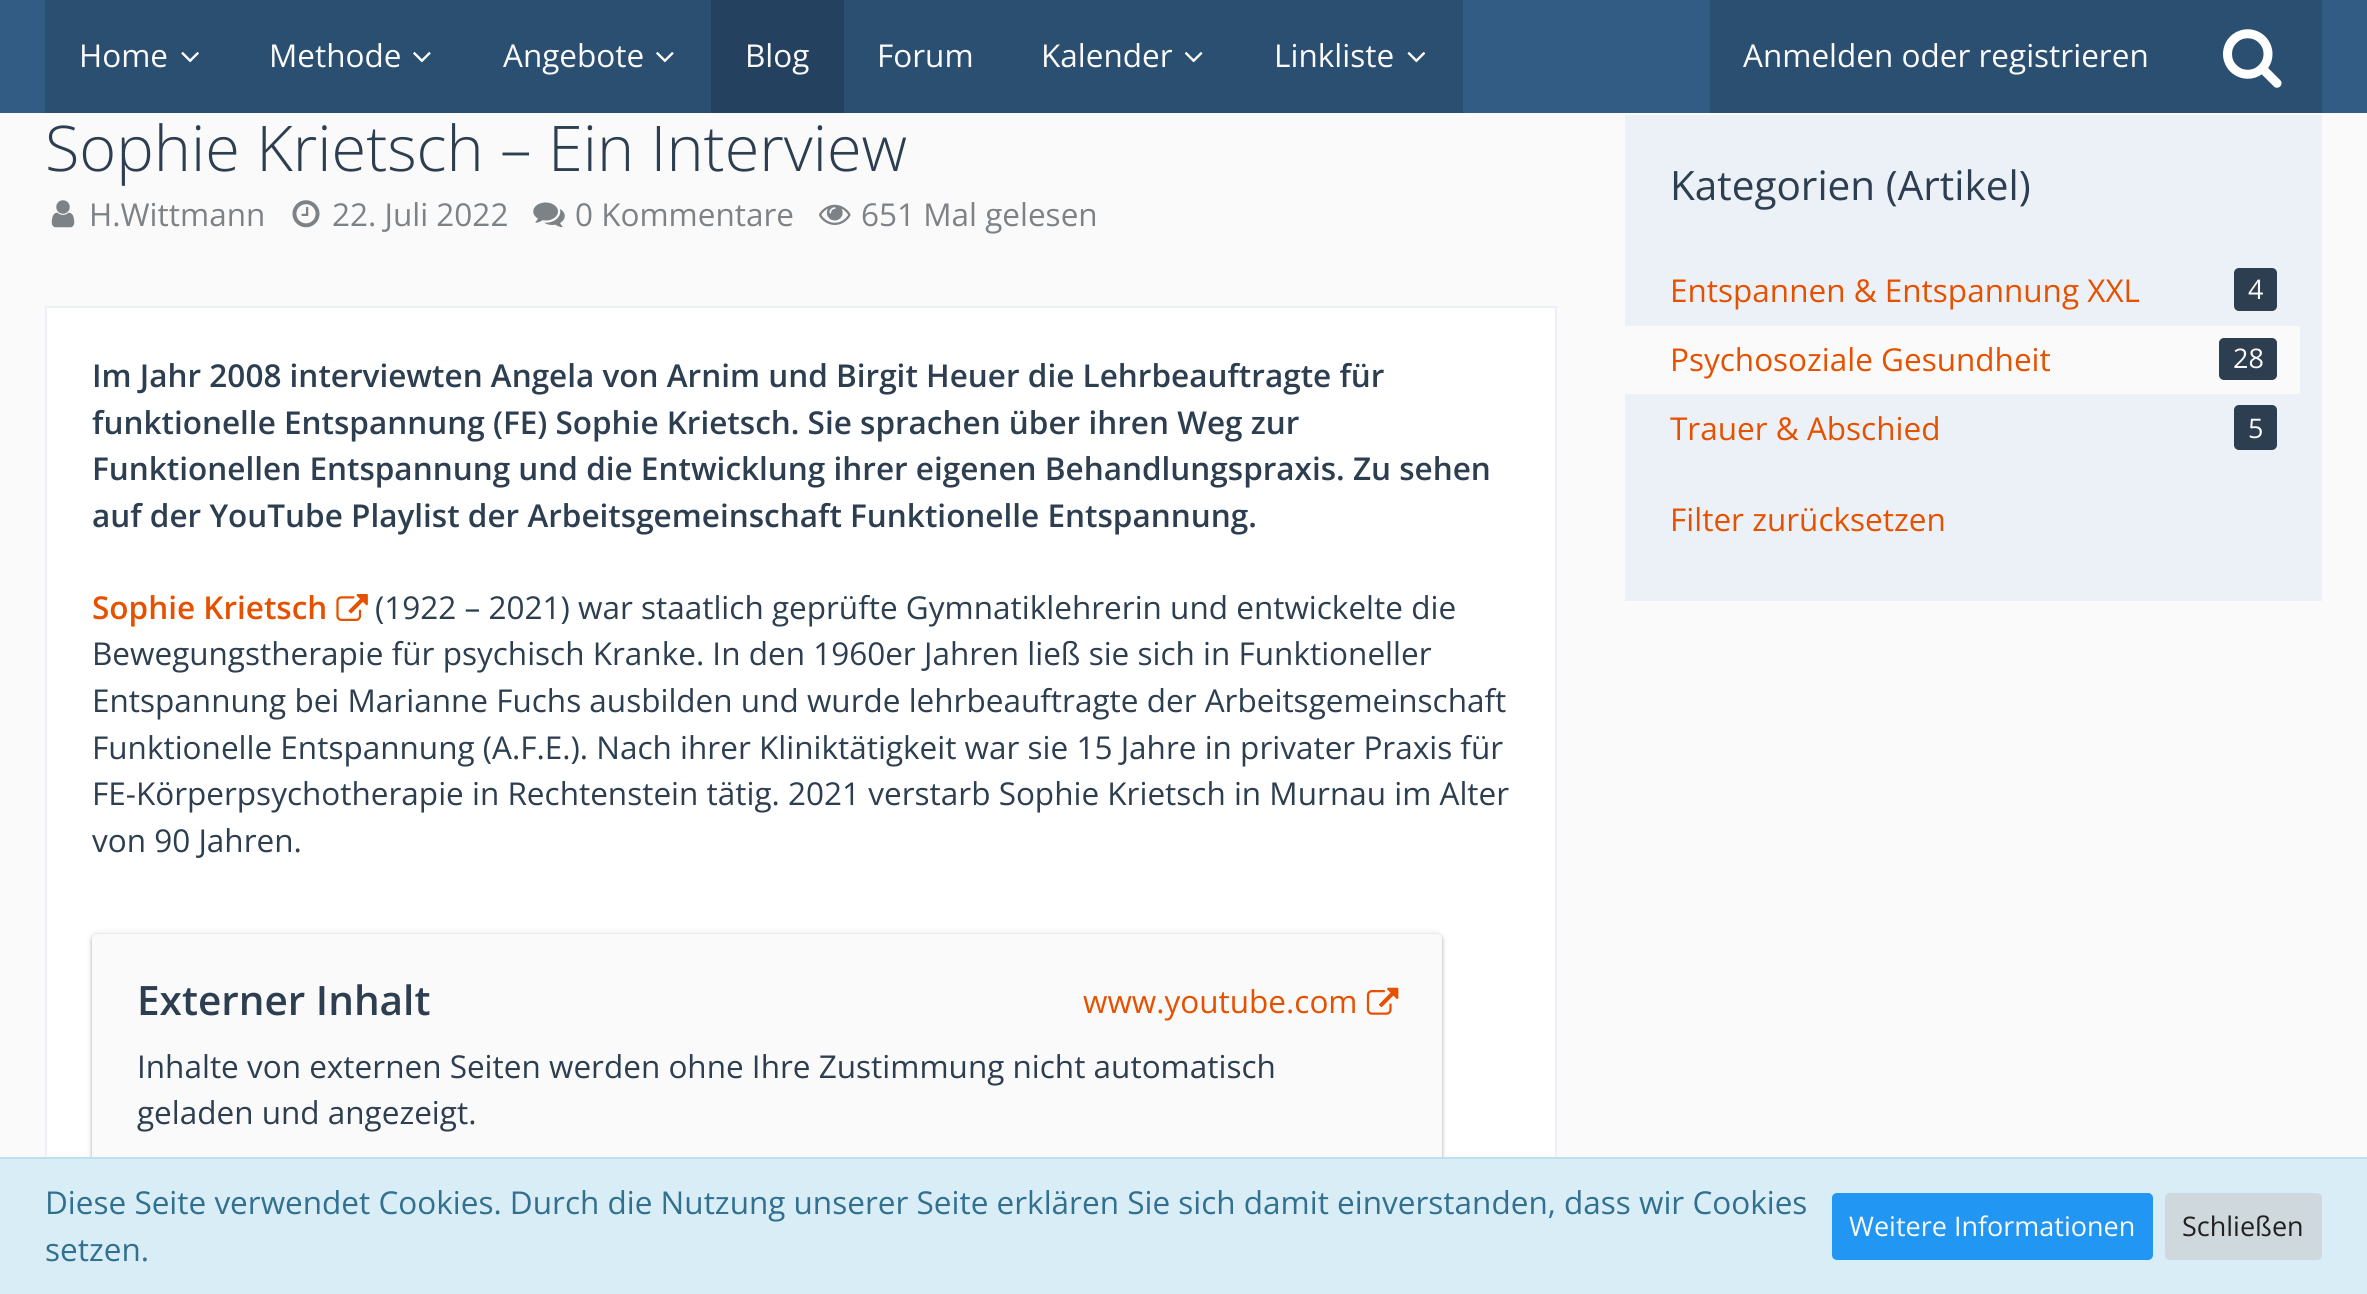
#include <cairo.h>
#include <math.h>
#include <stddef.h>

typedef struct { const char *family; double size; int italic, bold; unsigned color; } style_t;
static cairo_t *ctx;

static void ink(unsigned color) {
    cairo_set_source_rgb(ctx, (color >> 16) / 255.0, (color >> 8 & 255) / 255.0, (color & 255) / 255.0);
}

static void write(double x, double y, const char *s, const style_t *st) {
    cairo_select_font_face(ctx, st->family, st->italic ? CAIRO_FONT_SLANT_ITALIC : CAIRO_FONT_SLANT_NORMAL,
        st->bold ? CAIRO_FONT_WEIGHT_BOLD : CAIRO_FONT_WEIGHT_NORMAL);
    cairo_set_font_size(ctx, st->size);
    ink(st->color);
    cairo_move_to(ctx, x, y);
    cairo_show_text(ctx, s);
}

static void block(double x, double y, double w, double h, unsigned color) {
    ink(color);
    cairo_rectangle(ctx, x, y, w, h);
    cairo_fill(ctx);
}

static void round_path(double x, double y, double w, double h, double r) {
    cairo_new_sub_path(ctx);
    cairo_arc(ctx, x + w - r, y + h - r, r, 0, M_PI / 2);
    cairo_arc(ctx, x + r, y + h - r, r, M_PI / 2, M_PI);
    cairo_arc(ctx, x + r, y + r, r, M_PI, 1.5 * M_PI);
    cairo_arc(ctx, x + w - r, y + r, r, 1.5 * M_PI, 2 * M_PI);
    cairo_close_path(ctx);
}

static void blur_box(double x, double y, double w, double h, double r, double blur, double alpha) {
    cairo_push_group_with_content(ctx, CAIRO_CONTENT_ALPHA);
    cairo_set_operator(ctx, CAIRO_OPERATOR_SOURCE);
    for (int i = 15; i >= -15 && fmin(w, h) + blur * i / 3 > 0; i -= 2) {
        double e = blur * i / 6;
        cairo_set_source_rgba(ctx, 0, 0, 0, alpha * erfc((i - 1) / 8.5) / 2);
        round_path(x - e, y - e, w + 2 * e, h + 2 * e, fmax(0, fmin(r + e + blur * .6, fmin(w, h) / 2 + e)));
        cairo_fill(ctx);
    }
    cairo_pattern_t *soft = cairo_pop_group(ctx);
    cairo_mask(ctx, soft);
    cairo_pattern_destroy(soft);
}

static void paste(const char *path, double x, double y, double w, double h) {
    cairo_surface_t *image = cairo_image_surface_create_from_png(path);
    cairo_save(ctx);
    cairo_set_source_surface(ctx, image, x, y);
    cairo_rectangle(ctx, x, y, w, h);
    cairo_fill(ctx);
    cairo_restore(ctx);
    cairo_surface_destroy(image);
}

static const style_t s1 = {"Open Sans", 31.5, 0, 0, 0xfafafa};
static const style_t s2 = {"Open Sans Light", 63, 0, 0, 0x2c3e50};
static const style_t s3 = {"Open Sans", 31.5, 0, 0, 0x7d8287};
static const style_t s4 = {"Open Sans SemiBold", 31.5, 0, 0, 0x2c3e50};
static const style_t s5 = {"Open Sans SemiBold", 31.5, 0, 0, 0xe65100};
static const style_t s6 = {"Open Sans", 31.5, 0, 0, 0x2c3e50};
static const style_t s7 = {"Open Sans SemiBold", 40.5, 0, 0, 0x2c3e50};
static const style_t s8 = {"Open Sans", 31.5, 0, 0, 0xe65100};
static const style_t s9 = {"Open Sans", 40.5, 0, 0, 0x2c3e50};
static const style_t s10 = {"Open Sans", 27, 0, 0, 0xfafafa};
static const style_t s11 = {"Open Sans", 31.5, 0, 0, 0x31708f};
static const style_t s12 = {"Open Sans", 27, 0, 0, 0x212121};

int main(void) {
    cairo_surface_t *surface = cairo_image_surface_create(CAIRO_FORMAT_RGB24, 2367, 1294);
    ctx = cairo_create(surface);
    cairo_font_options_t *options = cairo_font_options_create();
    cairo_font_options_set_hint_metrics(options, CAIRO_HINT_METRICS_OFF);
    cairo_font_options_set_hint_style(options, CAIRO_HINT_STYLE_NONE);
    cairo_set_font_options(ctx, options);
    cairo_set_miter_limit(ctx, 4);
    ink(0xfafafa);
    cairo_paint(ctx);
    block(0, 0, 2367, 113, 0x325c84);
    block(45, 0, 666, 113, 0x2b4f71);
    write(79, 67, "Home", &s1);
    paste("pic1.png", 181, 52, 18, 11);
    write(269, 67, "Methode", &s1);
    paste("pic2.png", 413, 52, 18, 11);
    write(503, 67, "Angebote", &s1);
    paste("pic2.png", 656, 52, 18, 11);
    block(711, 0, 133, 113, 0x24425f);
    write(745, 67, "Blog", &s1);
    block(844, 0, 619, 113, 0x2b4f71);
    write(877, 67, "Forum", &s1);
    write(1041, 67, "Kalender", &s1);
    paste("pic3.png", 1184, 52, 19, 11);
    write(1274, 67, "Linkliste", &s1);
    paste("pic4.png", 1407, 52, 19, 11);
    block(1710, 0, 612, 113, 0x2b4f71);
    write(1743, 67, "Anmelden oder registrieren", &s1);
    paste("pic5.png", 2223, 29, 59, 59);
    write(45, 171, "Sophie Krietsch – Ein Interview", &s2);
    paste("pic6.png", 51, 200, 24, 28);
    write(89, 226, "H.Wittmann", &s3);
    paste("pic7.png", 292, 200, 28, 28);
    write(332, 226, "22. Juli 2022", &s3);
    paste("pic8.png", 533, 202, 32, 26);
    write(575, 226, "0 Kommentare", &s3);
    paste("pic9.png", 819, 204, 32, 21);
    write(861, 226, "651 Mal gelesen", &s3);
    block(47, 308, 1508, 849, 0xffffff);
    cairo_rectangle(ctx, 46, 307, 1510, 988);
    ink(0xecf1f7);
    cairo_stroke(ctx);
    write(92, 387, "Im Jahr 2008 interviewten Angela von Arnim und Birgit Heuer die Lehrbeauftragte für", &s4);
    write(92, 434, "funktionelle Entspannung (FE) Sophie Krietsch. Sie sprachen über ihren Weg zur", &s4);
    write(92, 480, "Funktionellen Entspannung und die Entwicklung ihrer eigenen Behandlungspraxis. Zu sehen", &s4);
    write(92, 527, "auf der YouTube Playlist der Arbeitsgemeinschaft Funktionelle Entspannung.", &s4);
    write(92, 619, "Sophie Krietsch", &s5);
    paste("pic10.png", 336, 594, 32, 27);
    write(375, 619, "(1922 – 2021) war staatlich geprüfte Gymnatiklehrerin und entwickelte die", &s6);
    write(92, 665, "Bewegungstherapie für psychisch Kranke. In den 1960er Jahren ließ sie sich in Funktioneller", &s6);
    write(92, 712, "Entspannung bei Marianne Fuchs ausbilden und wurde lehrbeauftragte der Arbeitsgemeinschaft", &s6);
    write(92, 759, "Funktionelle Entspannung (A.F.E.). Nach ihrer Kliniktätigkeit war sie 15 Jahre in privater Praxis für", &s6);
    write(92, 805, "FE-Körperpsychotherapie in Rechtenstein tätig. 2021 verstarb Sophie Krietsch in Murnau im Alter", &s6);
    write(92, 852, "von 90 Jahren.", &s6);
    ink(0x000000);
    blur_box(92, 936, 1350, 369, 5, 2, 0.24);
    blur_box(92, 934, 1350, 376, 5, 3.5, 0.12);
    ink(0xfafafa);
    round_path(92, 934, 1350, 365, 5);
    cairo_fill(ctx);
    write(137, 1015, "Externer Inhalt", &s7);
    write(1083, 1013, "www.youtube.com", &s8);
    paste("pic11.png", 1366, 987, 33, 28);
    write(137, 1078, "Inhalte von externen Seiten werden ohne Ihre Zustimmung nicht automatisch", &s6);
    write(137, 1124, "geladen und angezeigt.", &s6);
    block(1625, 115, 697, 486, 0xecf1f7);
    write(1670, 200, "Kategorien (Artikel)", &s9);
    write(1670, 302, "Entspannen & Entspannung XXL", &s8);
    ink(0x2c3e50);
    round_path(2234, 268, 43, 43, 5);
    cairo_fill(ctx);
    write(2248, 299, "4", &s10);
    block(1625, 326, 675, 68, 0xfafafa);
    write(1670, 371, "Psychosoziale Gesundheit", &s8);
    ink(0x2c3e50);
    round_path(2219, 338, 58, 42, 5);
    cairo_fill(ctx);
    write(2233, 368, "28", &s10);
    write(1670, 440, "Trauer & Abschied", &s8);
    ink(0x2c3e50);
    round_path(2234, 405, 43, 45, 5);
    cairo_fill(ctx);
    write(2248, 438, "5", &s10);
    write(1670, 531, "Filter zurücksetzen", &s8);
    block(0, 1159, 2367, 135, 0xd9edf7);
    block(0, 1157, 2367, 2, 0xbcdff1);
    write(45, 1214, "Diese Seite verwendet Cookies. Durch die Nutzung unserer Seite erklären Sie sich damit einverstanden, dass wir Cookies", &s11);
    write(45, 1261, "setzen.", &s11);
    ink(0x2196f3);
    round_path(1832, 1193, 321, 67, 5);
    cairo_fill(ctx);
    write(1849, 1236, "Weitere Informationen", &s10);
    ink(0xcfd8dc);
    round_path(2165, 1193, 157, 67, 5);
    cairo_fill(ctx);
    write(2182, 1236, "Schließen", &s12);
    cairo_surface_write_to_png(surface, "screenshot.png");
    cairo_font_options_destroy(options);
    cairo_destroy(ctx);
    cairo_surface_destroy(surface);
    return 0;
}
